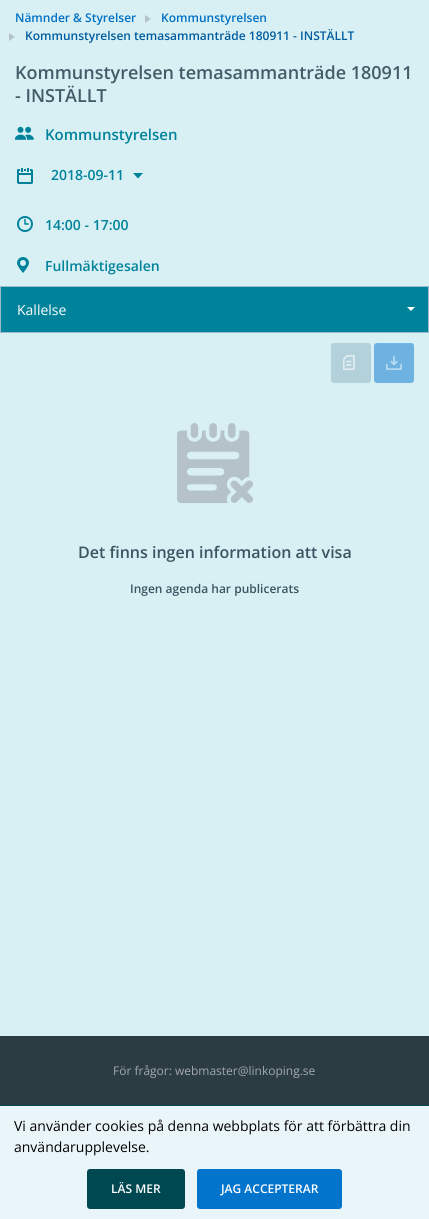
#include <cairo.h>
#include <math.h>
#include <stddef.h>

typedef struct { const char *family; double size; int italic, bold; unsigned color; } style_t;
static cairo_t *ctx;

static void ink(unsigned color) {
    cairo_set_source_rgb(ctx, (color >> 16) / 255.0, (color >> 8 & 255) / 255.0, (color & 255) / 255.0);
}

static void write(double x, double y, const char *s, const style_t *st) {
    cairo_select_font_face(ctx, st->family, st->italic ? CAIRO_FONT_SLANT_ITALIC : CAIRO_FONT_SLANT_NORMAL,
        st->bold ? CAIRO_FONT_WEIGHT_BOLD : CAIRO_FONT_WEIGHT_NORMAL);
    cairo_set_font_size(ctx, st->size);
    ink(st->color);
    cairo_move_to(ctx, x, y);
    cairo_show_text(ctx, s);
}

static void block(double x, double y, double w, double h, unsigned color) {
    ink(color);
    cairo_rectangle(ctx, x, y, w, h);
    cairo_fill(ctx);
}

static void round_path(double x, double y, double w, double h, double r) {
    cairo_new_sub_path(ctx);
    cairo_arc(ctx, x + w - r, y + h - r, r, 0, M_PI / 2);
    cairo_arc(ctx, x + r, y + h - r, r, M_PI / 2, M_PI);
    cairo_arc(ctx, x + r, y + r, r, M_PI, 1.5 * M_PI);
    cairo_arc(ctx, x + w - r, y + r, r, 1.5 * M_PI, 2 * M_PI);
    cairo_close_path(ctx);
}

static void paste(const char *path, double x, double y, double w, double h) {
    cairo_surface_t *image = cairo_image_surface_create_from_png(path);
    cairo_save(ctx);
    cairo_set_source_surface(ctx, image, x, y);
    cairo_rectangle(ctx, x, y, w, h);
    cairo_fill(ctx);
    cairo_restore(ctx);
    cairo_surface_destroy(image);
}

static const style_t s1 = {"Open Sans SemiBold", 12, 0, 0, 0x0070c3};
static const style_t s2 = {"Open Sans SemiBold", 12, 0, 0, 0x005c9f};
static const style_t s3 = {"Open Sans SemiBold", 18, 0, 0, 0x425c68};
static const style_t s4 = {"Open Sans SemiBold", 15, 0, 0, 0x00829b};
static const style_t s5 = {"Open Sans SemiBold", 14, 0, 0, 0x00829b};
static const style_t s6 = {"Open Sans", 14, 0, 0, 0xffffff};
static const style_t s7 = {"Open Sans SemiBold", 16, 0, 0, 0x395561};
static const style_t s8 = {"Open Sans SemiBold", 12, 0, 0, 0x395561};
static const style_t s9 = {"Open Sans", 12, 0, 0, 0xa1a9ad};
static const style_t s10 = {"Open Sans", 14, 0, 0, 0x000000};
static const style_t s11 = {"Open Sans SemiBold", 12, 0, 0, 0xffffff};

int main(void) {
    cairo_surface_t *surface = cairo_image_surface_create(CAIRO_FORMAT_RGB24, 429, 1219);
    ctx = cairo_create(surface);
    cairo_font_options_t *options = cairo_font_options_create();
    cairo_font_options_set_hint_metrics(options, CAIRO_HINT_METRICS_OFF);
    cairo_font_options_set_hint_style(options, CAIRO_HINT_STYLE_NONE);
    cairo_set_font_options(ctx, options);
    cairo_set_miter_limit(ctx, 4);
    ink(0xd8f0f4);
    cairo_paint(ctx);
    write(15, 22, "Nämnder & Styrelser", &s1);
    ink(0xb5c2c9);
    cairo_new_path(ctx);
    cairo_move_to(ctx, 145, 23);
    cairo_line_to(ctx, 145, 15);
    cairo_line_to(ctx, 151, 19);
    cairo_close_path(ctx);
    cairo_fill(ctx);
    write(161, 22, "Kommunstyrelsen", &s1);
    ink(0xb5c2c9);
    cairo_new_path(ctx);
    cairo_move_to(ctx, 9, 41);
    cairo_line_to(ctx, 9, 33);
    cairo_line_to(ctx, 15, 37);
    cairo_close_path(ctx);
    cairo_fill(ctx);
    write(25, 40, "Kommunstyrelsen temasammanträde 180911 - INSTÄLLT", &s2);
    write(15, 79, "Kommunstyrelsen temasammanträde 180911", &s3);
    write(15, 102, "- INSTÄLLT", &s3);
    paste("pic1.png", 15, 126, 19, 14);
    write(45, 140, "Kommunstyrelsen", &s4);
    paste("pic2.png", 17, 168, 16, 16);
    write(51, 180, "2018-09-11", &s5);
    cairo_new_path(ctx);
    cairo_move_to(ctx, 143, 173);
    cairo_line_to(ctx, 138, 178.5);
    cairo_line_to(ctx, 133, 173);
    cairo_close_path(ctx);
    cairo_fill(ctx);
    paste("pic3.png", 17, 216, 16, 16);
    write(45, 230, "14:00 - 17:00", &s5);
    paste("pic4.png", 17, 257, 12, 16);
    write(45, 271, "Fullmäktigesalen", &s5);
    cairo_rectangle(ctx, 0.5, 286.5, 428, 46);
    cairo_fill_preserve(ctx);
    ink(0x9abccb);
    cairo_set_line_width(ctx, 1);
    cairo_stroke(ctx);
    write(17, 315, "Kallelse", &s6);
    cairo_new_path(ctx);
    cairo_move_to(ctx, 407, 307);
    cairo_line_to(ctx, 415, 307);
    cairo_line_to(ctx, 411, 311);
    cairo_close_path(ctx);
    cairo_fill(ctx);
    ink(0xb3d1db);
    round_path(331, 343, 40, 40, 3);
    cairo_fill(ctx);
    paste("pic5.png", 343, 355, 12, 16);
    ink(0x6db2e0);
    round_path(374, 343, 40, 40, 3);
    cairo_fill(ctx);
    ink(0x6cbaee);
    cairo_new_path(ctx);
    cairo_move_to(ctx, 377, 344);
    cairo_line_to(ctx, 411, 344);
    cairo_curve_to(ctx, 413, 344, 414, 345, 414, 347);
    cairo_curve_to(ctx, 414, 342, 409, 343, 405, 343);
    cairo_line_to(ctx, 383, 343);
    cairo_curve_to(ctx, 379, 343, 374, 342, 374, 347);
    cairo_curve_to(ctx, 374, 345, 375, 344, 377, 344);
    cairo_close_path(ctx);
    cairo_fill(ctx);
    paste("pic6.png", 386, 356, 16, 14);
    paste("pic7.png", 177, 423, 76, 80);
    write(78, 558, "Det finns ingen information att visa", &s7);
    write(130, 593, "Ingen agenda har publicerats", &s8);
    block(0, 1036, 429, 69, 0x2c3c43);
    write(113, 1075, "För frågor: webmaster@linkoping.se", &s9);
    block(0, 1106, 429, 113, 0xeaf5fa);
    block(0, 1105, 429, 1, 0x004851);
    write(14, 1131, "Vi använder cookies på denna webbplats för att förbättra din", &s10);
    write(14, 1152, "användarupplevelse.", &s10);
    ink(0x004851);
    round_path(87, 1169, 98, 40, 3);
    cairo_fill(ctx);
    write(111, 1193, "LÄS MER", &s11);
    ink(0x0274cb);
    round_path(197, 1169, 145, 40, 3);
    cairo_fill(ctx);
    write(221, 1193, "JAG ACCEPTERAR", &s11);
    cairo_surface_write_to_png(surface, "screenshot.png");
    cairo_font_options_destroy(options);
    cairo_destroy(ctx);
    cairo_surface_destroy(surface);
    return 0;
}
